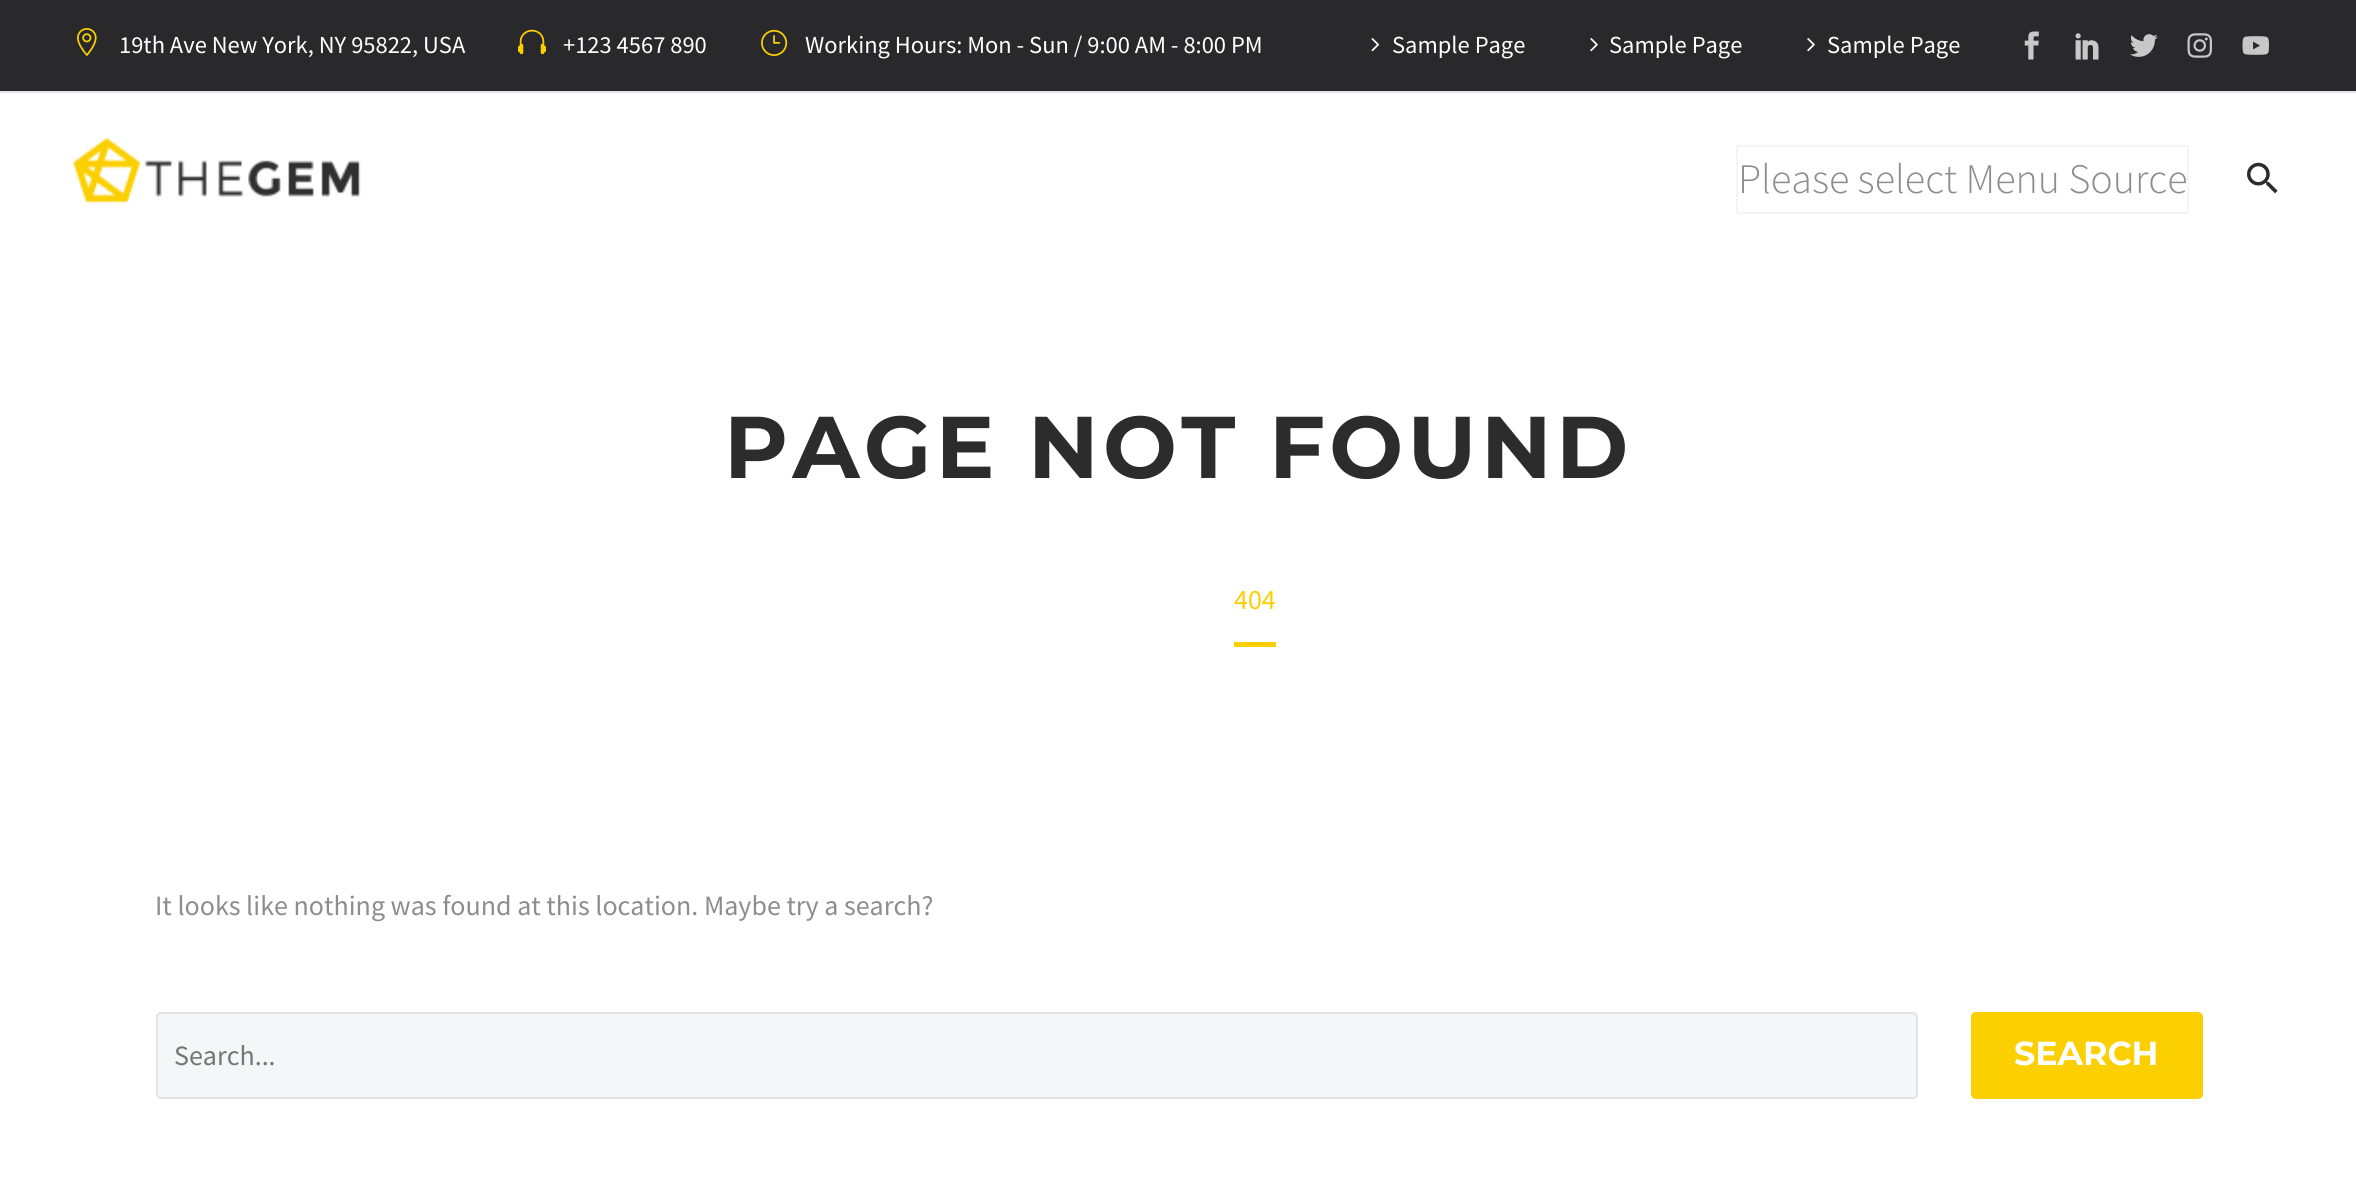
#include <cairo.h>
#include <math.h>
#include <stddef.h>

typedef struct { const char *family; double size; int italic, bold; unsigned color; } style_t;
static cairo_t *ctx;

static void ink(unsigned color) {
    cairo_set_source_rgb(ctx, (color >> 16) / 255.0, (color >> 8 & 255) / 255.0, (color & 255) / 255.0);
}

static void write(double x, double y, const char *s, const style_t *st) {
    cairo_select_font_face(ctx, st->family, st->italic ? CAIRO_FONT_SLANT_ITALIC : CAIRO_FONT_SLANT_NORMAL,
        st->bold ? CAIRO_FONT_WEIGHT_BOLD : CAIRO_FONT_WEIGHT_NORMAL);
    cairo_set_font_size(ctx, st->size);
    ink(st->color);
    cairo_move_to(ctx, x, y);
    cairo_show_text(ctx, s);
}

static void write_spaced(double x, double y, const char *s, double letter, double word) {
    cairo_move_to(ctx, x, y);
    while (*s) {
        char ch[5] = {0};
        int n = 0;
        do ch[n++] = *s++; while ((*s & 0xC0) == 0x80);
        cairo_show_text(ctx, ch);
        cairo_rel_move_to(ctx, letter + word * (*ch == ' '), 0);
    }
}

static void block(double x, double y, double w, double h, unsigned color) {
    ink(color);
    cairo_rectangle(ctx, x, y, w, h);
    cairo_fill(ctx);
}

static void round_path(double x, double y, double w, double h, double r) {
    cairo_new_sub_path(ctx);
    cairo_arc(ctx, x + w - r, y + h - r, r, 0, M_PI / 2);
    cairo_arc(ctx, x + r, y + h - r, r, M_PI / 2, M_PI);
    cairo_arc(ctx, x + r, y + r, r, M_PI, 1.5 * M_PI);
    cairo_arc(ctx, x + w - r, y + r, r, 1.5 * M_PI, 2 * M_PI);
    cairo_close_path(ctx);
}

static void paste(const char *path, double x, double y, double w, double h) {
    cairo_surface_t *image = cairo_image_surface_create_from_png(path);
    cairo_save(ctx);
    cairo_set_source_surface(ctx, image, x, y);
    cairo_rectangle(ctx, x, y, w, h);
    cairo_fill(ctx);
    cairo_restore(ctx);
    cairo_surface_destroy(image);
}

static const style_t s1 = {"Source Sans Pro", 24.5, 0, 0, 0xffffff};
static const style_t s2 = {"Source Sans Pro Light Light", 42, 0, 0, 0x8d8d8d};
static const style_t s3 = {"Source Sans Pro", 28, 0, 0, 0xfbcf00};
static const style_t s4 = {"Source Sans Pro", 28, 0, 0, 0x8d8d8d};
static const style_t s5 = {"Source Sans Pro", 28, 0, 0, 0x757575};
static const style_t s6 = {"Montserrat", 33.25, 0, 1, 0xffffff};

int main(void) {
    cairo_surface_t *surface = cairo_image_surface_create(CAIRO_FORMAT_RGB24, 2356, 1203);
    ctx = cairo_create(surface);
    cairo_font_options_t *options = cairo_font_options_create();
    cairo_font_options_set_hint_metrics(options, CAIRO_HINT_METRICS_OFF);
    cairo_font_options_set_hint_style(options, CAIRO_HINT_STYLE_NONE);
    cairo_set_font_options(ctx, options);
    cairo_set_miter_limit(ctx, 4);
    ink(0xffffff);
    cairo_paint(ctx);
    block(0, 0, 2356, 91, 0x29292b);
    block(0, 91, 2356, 2, 0xdfe5e8);
    paste("pic1.png", 77, 28, 20, 28);
    write(119, 53, "19th Ave New York, NY 95822, USA", &s1);
    paste("pic2.png", 518, 29, 28, 26);
    write(563, 53, "+123 4567 890", &s1);
    paste("pic3.png", 761, 29, 27, 27);
    write(805, 53, "Working Hours: Mon - Sun / 9:00 AM - 8:00 PM", &s1);
    paste("pic4.png", 1371, 38, 8, 14);
    write(1392, 53, "Sample Page", &s1);
    paste("pic5.png", 1590, 38, 8, 14);
    write(1609, 53, "Sample Page", &s1);
    paste("pic5.png", 1807, 38, 8, 14);
    write(1827, 53, "Sample Page", &s1);
    paste("pic6.png", 2024, 31, 15, 29);
    paste("pic7.png", 2075, 33, 24, 27);
    paste("pic8.png", 2130, 34, 28, 23);
    paste("pic9.png", 2187, 33, 25, 25);
    paste("pic10.png", 2242, 36, 27, 19);
    paste("pic11.png", 73, 137, 288, 67);
    cairo_rectangle(ctx, 1737, 146, 451, 67);
    ink(0xf5f5f5);
    cairo_stroke(ctx);
    write(1738, 193, "Please select Menu Source", &s2);
    paste("pic12.png", 2247, 162, 31, 32);
    cairo_select_font_face(ctx, "Montserrat", CAIRO_FONT_SLANT_NORMAL, CAIRO_FONT_WEIGHT_BOLD);
    cairo_set_font_size(ctx, 87.5);
    ink(0x2c2c2c);
    write_spaced(724, 478, "PAGE NOT FOUND", 4.4, 0);
    block(1234, 642, 42, 5, 0xfbcf00);
    write(1234, 609, "404", &s3);
    write(155, 915, "It looks like nothing was found at this location. Maybe try a search?", &s4);
    ink(0xf4f6f7);
    round_path(157, 1013, 1760, 85, 4);
    cairo_fill_preserve(ctx);
    ink(0xdfe5e8);
    cairo_stroke(ctx);
    write(174, 1065, "Search...", &s5);
    ink(0xfbcf00);
    round_path(1971, 1012, 232, 87, 5);
    cairo_fill(ctx);
    write(2014, 1065, "SEARCH", &s6);
    cairo_surface_write_to_png(surface, "screenshot.png");
    cairo_font_options_destroy(options);
    cairo_destroy(ctx);
    cairo_surface_destroy(surface);
    return 0;
}
